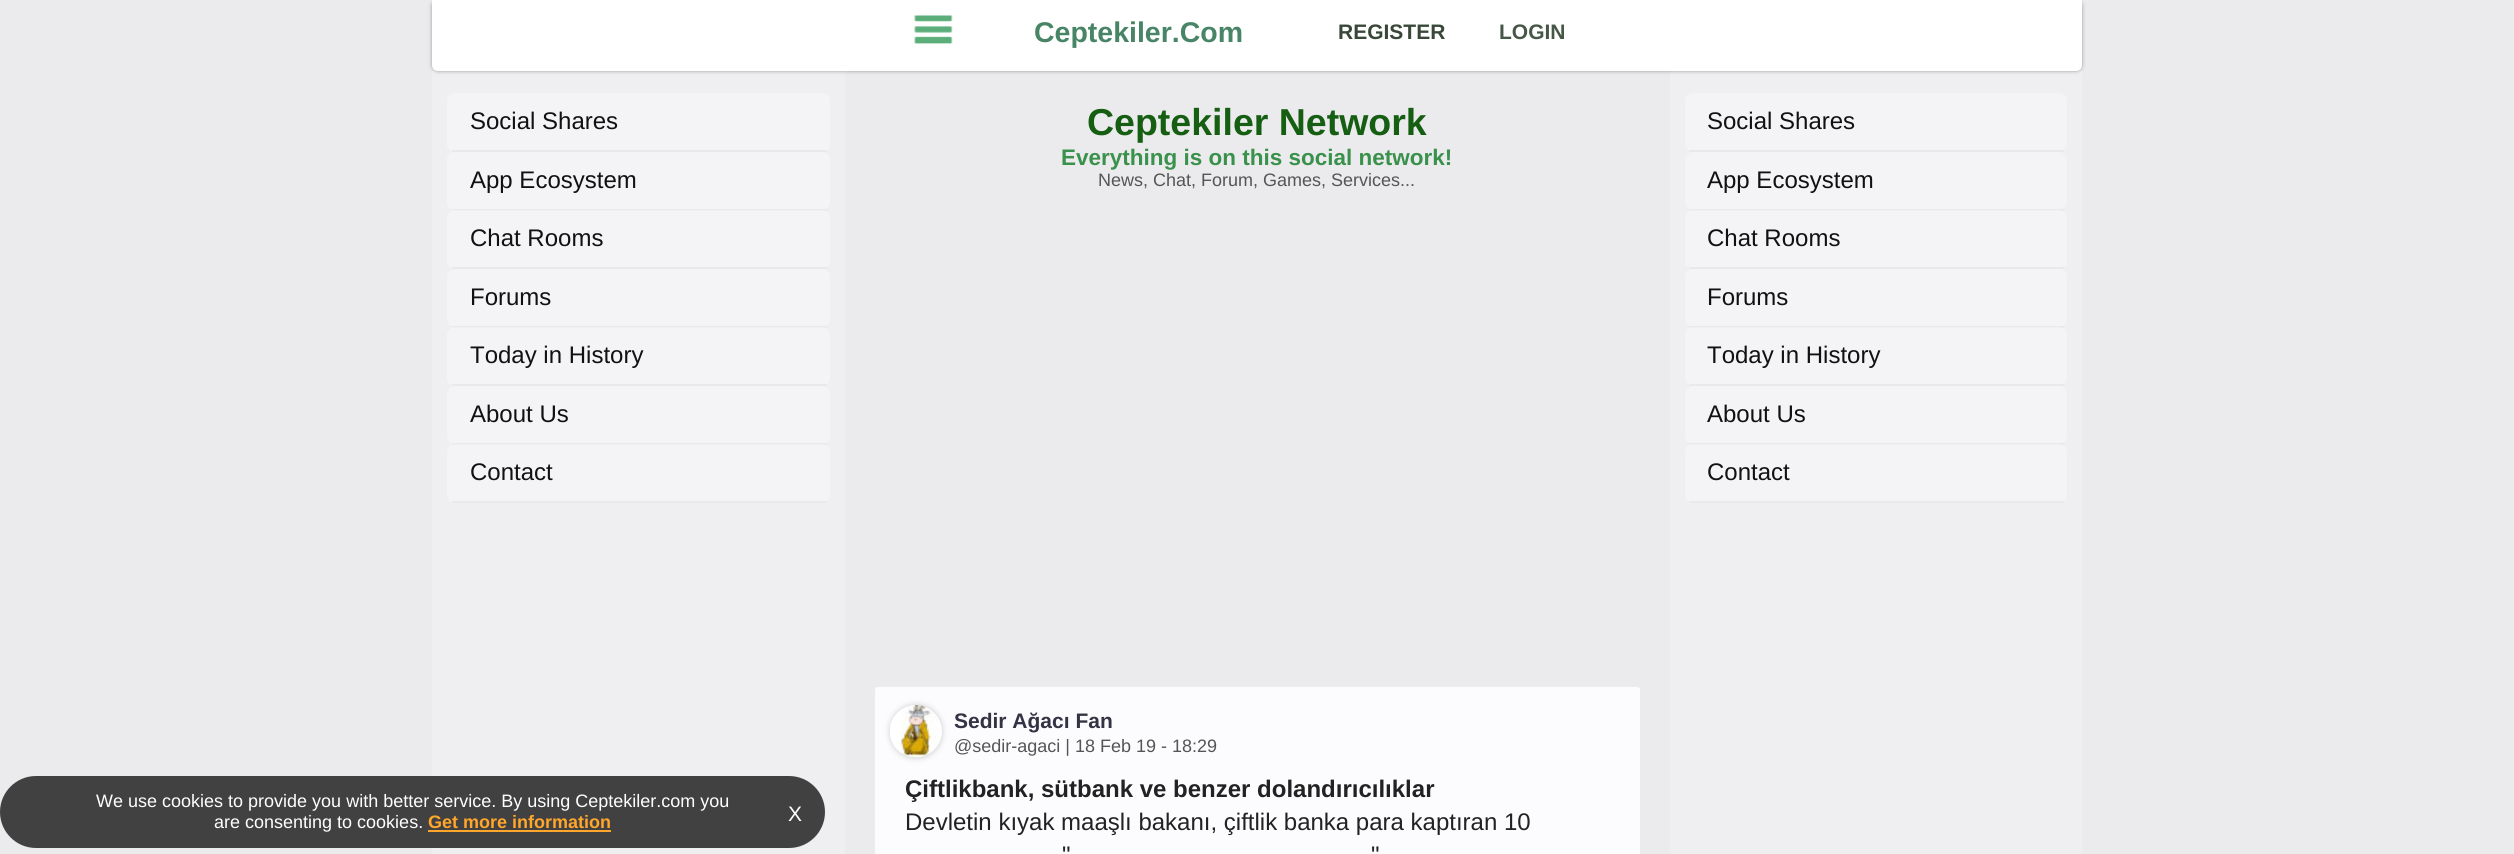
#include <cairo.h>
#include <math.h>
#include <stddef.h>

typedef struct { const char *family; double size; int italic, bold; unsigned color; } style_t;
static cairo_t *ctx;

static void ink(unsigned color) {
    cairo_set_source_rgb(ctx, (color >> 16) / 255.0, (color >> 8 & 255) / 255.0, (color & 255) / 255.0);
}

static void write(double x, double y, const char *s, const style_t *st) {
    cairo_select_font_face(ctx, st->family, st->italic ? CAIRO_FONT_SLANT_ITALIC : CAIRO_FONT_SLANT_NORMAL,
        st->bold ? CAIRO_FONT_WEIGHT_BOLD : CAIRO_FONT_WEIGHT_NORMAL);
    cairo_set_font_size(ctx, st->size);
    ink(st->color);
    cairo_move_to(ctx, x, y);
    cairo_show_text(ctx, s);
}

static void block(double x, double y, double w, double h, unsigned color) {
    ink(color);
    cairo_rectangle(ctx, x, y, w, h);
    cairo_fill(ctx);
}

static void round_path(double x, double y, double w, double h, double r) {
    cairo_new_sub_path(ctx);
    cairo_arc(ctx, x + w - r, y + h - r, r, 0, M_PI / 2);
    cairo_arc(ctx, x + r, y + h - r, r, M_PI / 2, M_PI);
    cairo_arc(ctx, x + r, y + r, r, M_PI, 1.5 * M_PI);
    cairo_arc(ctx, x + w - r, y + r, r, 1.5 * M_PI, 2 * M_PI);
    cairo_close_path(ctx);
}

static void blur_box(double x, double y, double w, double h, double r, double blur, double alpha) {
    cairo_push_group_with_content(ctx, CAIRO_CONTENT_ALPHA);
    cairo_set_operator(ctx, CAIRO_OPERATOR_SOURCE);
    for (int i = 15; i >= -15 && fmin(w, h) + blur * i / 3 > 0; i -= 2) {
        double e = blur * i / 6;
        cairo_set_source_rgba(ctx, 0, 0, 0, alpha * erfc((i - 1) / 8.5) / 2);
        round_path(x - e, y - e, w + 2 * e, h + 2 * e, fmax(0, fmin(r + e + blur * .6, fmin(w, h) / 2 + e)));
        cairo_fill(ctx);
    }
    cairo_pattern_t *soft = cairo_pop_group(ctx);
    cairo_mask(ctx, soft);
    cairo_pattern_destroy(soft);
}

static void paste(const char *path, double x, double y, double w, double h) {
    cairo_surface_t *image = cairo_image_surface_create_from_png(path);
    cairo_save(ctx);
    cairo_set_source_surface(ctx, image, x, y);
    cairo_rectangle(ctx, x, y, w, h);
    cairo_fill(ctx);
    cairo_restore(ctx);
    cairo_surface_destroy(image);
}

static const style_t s1 = {"Liberation Sans", 28.5, 0, 1, 0x478566};
static const style_t s2 = {"Liberation Sans", 21, 0, 1, 0x384738};
static const style_t s3 = {"Liberation Sans", 21, 0, 1, 0x475747};
static const style_t s4 = {"Liberation Sans", 18, 0, 0, 0xffffff};
static const style_t s5 = {"Liberation Sans", 18, 0, 1, 0xffa62b};
static const style_t s6 = {"Liberation Sans", 21, 0, 0, 0xffffff};
static const style_t s7 = {"Liberation Sans", 24, 0, 0, 0x111111};
static const style_t s8 = {"Liberation Sans", 37.5, 0, 1, 0x165e12};
static const style_t s9 = {"Liberation Sans", 22.5, 0, 1, 0x3a914c};
static const style_t s10 = {"Liberation Sans", 18, 0, 0, 0x555555};
static const style_t s11 = {"Liberation Sans", 21, 0, 1, 0x333344};
static const style_t s12 = {"Liberation Sans", 24, 0, 1, 0x222222};
static const style_t s13 = {"Liberation Sans", 24, 0, 0, 0x222222};

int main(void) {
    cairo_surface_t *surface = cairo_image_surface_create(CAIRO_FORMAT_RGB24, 2514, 854);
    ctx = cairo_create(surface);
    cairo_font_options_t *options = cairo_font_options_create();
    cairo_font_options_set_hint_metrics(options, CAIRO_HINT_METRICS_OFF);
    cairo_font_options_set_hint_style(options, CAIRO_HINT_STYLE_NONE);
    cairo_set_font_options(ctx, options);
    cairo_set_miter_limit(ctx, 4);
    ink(0xebebee);
    cairo_paint(ctx);
    block(432, 71, 413, 783, 0xefeff2);
    block(1670, 71, 412, 783, 0xefeff2);
    ink(0x999999);
    blur_box(432, 0, 1650, 71, 6, 2, 1);
    ink(0xffffff);
    cairo_new_path(ctx);
    cairo_move_to(ctx, 432, 0);
    cairo_line_to(ctx, 2082, 0);
    cairo_line_to(ctx, 2082, 65);
    cairo_curve_to(ctx, 2082, 68.5, 2079.5, 71, 2076, 71);
    cairo_line_to(ctx, 438, 71);
    cairo_curve_to(ctx, 434.5, 71, 432, 68.5, 432, 65);
    cairo_close_path(ctx);
    cairo_fill(ctx);
    paste("pic1.png", 914, 15, 39, 29);
    write(1034, 42, "Ceptekiler.Com", &s1);
    write(1338, 39, "REGISTER", &s2);
    write(1499, 39, "LOGIN", &s3);
    cairo_set_source_rgba(ctx, 0.184, 0.184, 0.184, 0.9);
    round_path(0, 776, 825, 72, 36);
    cairo_fill(ctx);
    write(96, 807, "We use cookies to provide you with better service. By using Ceptekiler.com you", &s4);
    write(214, 828, "are consenting to cookies.", &s4);
    write(428, 828, "Get more information", &s5);
    block(428, 830, 183, 2, 0xffa62b);
    write(788, 821, "X", &s6);
    ink(0xf4f4f6);
    round_path(447, 93, 383, 59, 8);
    cairo_fill(ctx);
    block(452, 150, 375, 2, 0xe9e9e9);
    write(470, 129, "Social Shares", &s7);
    ink(0xf4f4f6);
    round_path(447, 152, 383, 58, 8);
    cairo_fill(ctx);
    block(452, 209, 375, 2, 0xe9e9e9);
    write(470, 188, "App Ecosystem", &s7);
    cairo_set_source_rgba(ctx, 1, 1, 1, 0.33);
    round_path(447, 210, 383, 59, 8);
    cairo_fill(ctx);
    block(452, 267, 375, 2, 0xe9e9e9);
    write(470, 246, "Chat Rooms", &s7);
    ink(0xf4f4f6);
    round_path(447, 269, 383, 58, 8);
    cairo_fill(ctx);
    block(452, 326, 375, 2, 0xe9e9e9);
    write(470, 305, "Forums", &s7);
    cairo_set_source_rgba(ctx, 1, 1, 1, 0.33);
    round_path(447, 327, 383, 59, 8);
    cairo_fill(ctx);
    block(452, 384, 375, 2, 0xe9e9e9);
    write(470, 363, "Today in History", &s7);
    ink(0xf4f4f6);
    round_path(447, 386, 383, 58, 8);
    cairo_fill(ctx);
    block(452, 443, 375, 2, 0xe9e9e9);
    write(470, 422, "About Us", &s7);
    cairo_set_source_rgba(ctx, 1, 1, 1, 0.33);
    round_path(447, 444, 383, 59, 8);
    cairo_fill(ctx);
    block(452, 501, 375, 2, 0xe9e9e9);
    write(470, 480, "Contact", &s7);
    write(1087, 135, "Ceptekiler Network", &s8);
    write(1061, 165, "Everything is on this social network!", &s9);
    write(1098, 186, "News, Chat, Forum, Games, Services...", &s10);
    ink(0xfcfcff);
    round_path(875, 687, 765, 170, 3);
    cairo_fill(ctx);
    ink(0xcccccc);
    blur_box(890, 705, 52, 53, 26, 3, 1);
    paste("pic2.png", 890, 705, 52, 53);
    write(954, 728, "Sedir Ağacı Fan", &s11);
    write(954, 752, "@sedir-agaci | 18 Feb 19 - 18:29", &s10);
    write(905, 797, "Çiftlikbank, sütbank ve benzer dolandırıcılıklar", &s12);
    write(905, 830, "Devletin kıyak maaşlı bakanı, çiftlik banka para kaptıran 10", &s13);
    write(1062, 863, "\"", &s13);
    write(1371, 863, "\"", &s13);
    ink(0xf4f4f6);
    round_path(1685, 93, 382, 59, 8);
    cairo_fill(ctx);
    block(1689, 150, 375, 2, 0xe9e9e9);
    write(1707, 129, "Social Shares", &s7);
    ink(0xf4f4f6);
    round_path(1685, 152, 382, 58, 8);
    cairo_fill(ctx);
    block(1689, 209, 375, 2, 0xe9e9e9);
    write(1707, 188, "App Ecosystem", &s7);
    cairo_set_source_rgba(ctx, 1, 1, 1, 0.33);
    round_path(1685, 210, 382, 59, 8);
    cairo_fill(ctx);
    block(1689, 267, 375, 2, 0xe9e9e9);
    write(1707, 246, "Chat Rooms", &s7);
    ink(0xf4f4f6);
    round_path(1685, 269, 382, 58, 8);
    cairo_fill(ctx);
    block(1689, 326, 375, 2, 0xe9e9e9);
    write(1707, 305, "Forums", &s7);
    cairo_set_source_rgba(ctx, 1, 1, 1, 0.33);
    round_path(1685, 327, 382, 59, 8);
    cairo_fill(ctx);
    block(1689, 384, 375, 2, 0xe9e9e9);
    write(1707, 363, "Today in History", &s7);
    ink(0xf4f4f6);
    round_path(1685, 386, 382, 58, 8);
    cairo_fill(ctx);
    block(1689, 443, 375, 2, 0xe9e9e9);
    write(1707, 422, "About Us", &s7);
    cairo_set_source_rgba(ctx, 1, 1, 1, 0.33);
    round_path(1685, 444, 382, 59, 8);
    cairo_fill(ctx);
    block(1689, 501, 375, 2, 0xe9e9e9);
    write(1707, 480, "Contact", &s7);
    cairo_surface_write_to_png(surface, "screenshot.png");
    cairo_font_options_destroy(options);
    cairo_destroy(ctx);
    cairo_surface_destroy(surface);
    return 0;
}
